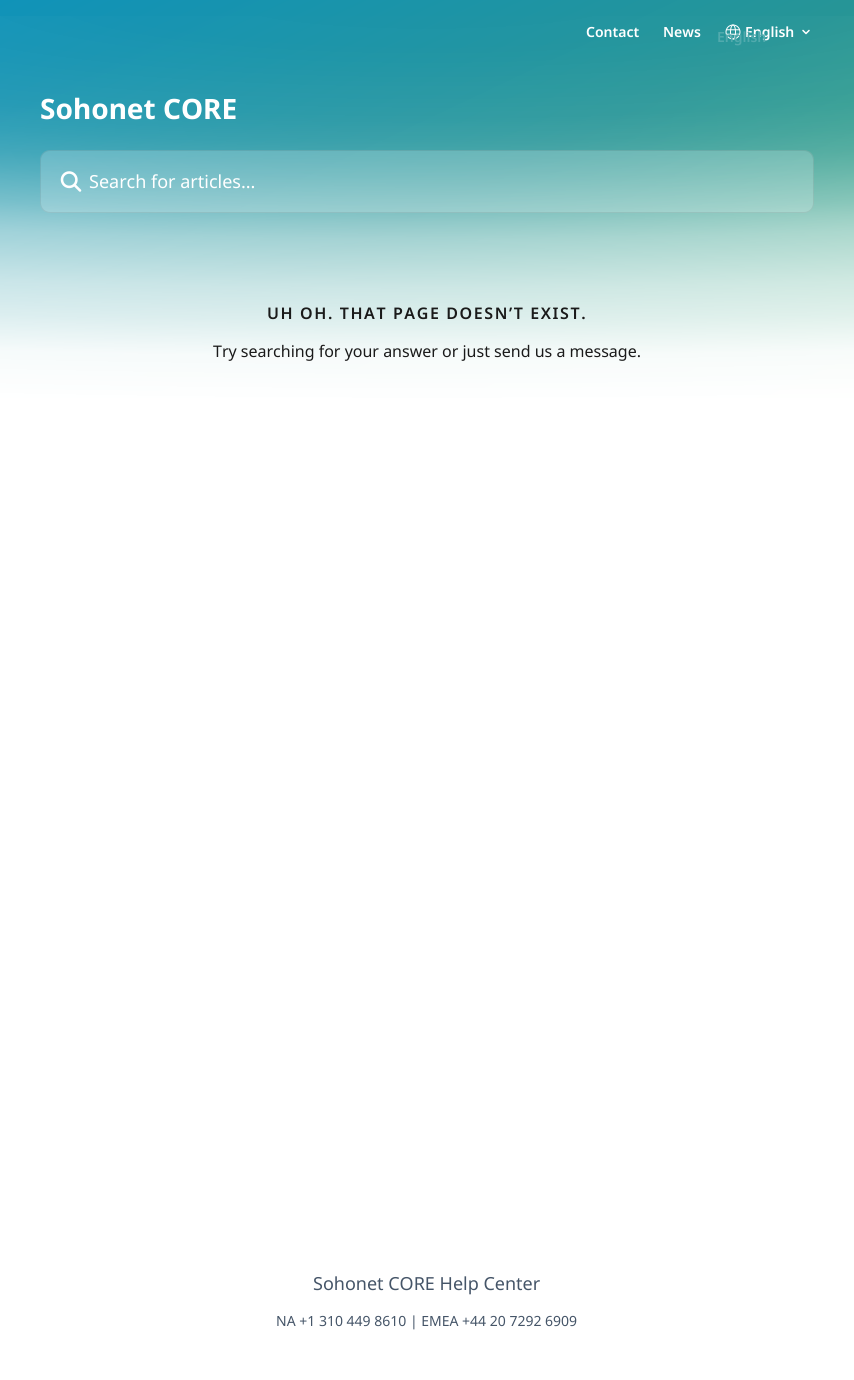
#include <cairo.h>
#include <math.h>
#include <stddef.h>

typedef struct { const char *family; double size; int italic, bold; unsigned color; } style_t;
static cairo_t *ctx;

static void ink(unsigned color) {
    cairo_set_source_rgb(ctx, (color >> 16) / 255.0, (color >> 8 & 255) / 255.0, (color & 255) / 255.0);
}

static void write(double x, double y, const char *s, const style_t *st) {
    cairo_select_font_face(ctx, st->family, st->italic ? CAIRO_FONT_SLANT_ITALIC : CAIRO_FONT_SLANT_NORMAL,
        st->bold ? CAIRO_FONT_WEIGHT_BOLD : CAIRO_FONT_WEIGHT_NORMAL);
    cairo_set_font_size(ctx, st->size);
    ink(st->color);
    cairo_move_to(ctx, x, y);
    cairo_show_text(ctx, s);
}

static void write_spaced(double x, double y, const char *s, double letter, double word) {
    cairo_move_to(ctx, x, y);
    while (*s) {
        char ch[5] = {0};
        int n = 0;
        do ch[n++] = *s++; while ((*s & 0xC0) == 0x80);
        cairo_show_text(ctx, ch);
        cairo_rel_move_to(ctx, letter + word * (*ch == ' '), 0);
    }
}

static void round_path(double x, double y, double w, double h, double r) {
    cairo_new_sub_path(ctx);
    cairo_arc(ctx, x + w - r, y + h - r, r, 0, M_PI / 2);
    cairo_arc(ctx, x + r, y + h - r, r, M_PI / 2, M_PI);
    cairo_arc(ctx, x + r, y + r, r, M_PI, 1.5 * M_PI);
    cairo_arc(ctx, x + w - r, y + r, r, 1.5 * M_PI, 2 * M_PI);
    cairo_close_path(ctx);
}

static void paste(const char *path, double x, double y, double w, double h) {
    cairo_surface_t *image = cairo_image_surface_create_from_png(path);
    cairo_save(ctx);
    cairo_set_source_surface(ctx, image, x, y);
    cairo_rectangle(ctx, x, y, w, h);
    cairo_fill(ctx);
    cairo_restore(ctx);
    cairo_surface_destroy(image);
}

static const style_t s1 = {"Noto Sans SemiBold", 14, 0, 0, 0xffffff};
static const style_t s2 = {"Noto Sans SemiBold", 14, 0, 0, 0x51aaad};
static const style_t s3 = {"Noto Sans", 28, 0, 1, 0xffffff};
static const style_t s4 = {"Noto Sans", 18, 0, 0, 0xffffff};
static const style_t s5 = {"Noto Sans", 16, 0, 0, 0x1a1a1a};
static const style_t s6 = {"Noto Sans", 18, 0, 0, 0x455568};
static const style_t s7 = {"Noto Sans", 14, 0, 0, 0x455568};

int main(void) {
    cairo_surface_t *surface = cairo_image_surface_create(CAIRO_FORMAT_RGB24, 854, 1380);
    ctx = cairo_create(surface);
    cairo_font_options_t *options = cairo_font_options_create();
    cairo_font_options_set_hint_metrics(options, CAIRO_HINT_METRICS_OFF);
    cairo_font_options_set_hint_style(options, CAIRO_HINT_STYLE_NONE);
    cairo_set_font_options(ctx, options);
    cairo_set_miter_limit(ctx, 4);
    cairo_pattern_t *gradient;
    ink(0xffffff);
    cairo_paint(ctx);
    gradient = cairo_pattern_create_linear(270, -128, 584, 533);
    cairo_pattern_add_color_stop_rgba(gradient, 0, 0.063, 0.576, 0.725, 1);
    cairo_pattern_add_color_stop_rgba(gradient, 0.5, 0.149, 0.584, 0.592, 1);
    cairo_pattern_add_color_stop_rgba(gradient, 1, 0.263, 0.663, 0.486, 1);
    cairo_set_source(ctx, gradient);
    cairo_pattern_destroy(gradient);
    cairo_rectangle(ctx, 0, 0, 854, 398);
    cairo_fill(ctx);
    gradient = cairo_pattern_create_radial(0, 0, 0, 0, 0, 1);
    cairo_pattern_set_matrix(gradient, &(cairo_matrix_t){1.0 / 2847, 0, 0, 1.0 / 405, -1.0 * 427 / 2847, -1.0 * 0 / 405});
    cairo_pattern_add_color_stop_rgba(gradient, 0, 1, 1, 1, 0);
    cairo_pattern_add_color_stop_rgba(gradient, 0.12, 1, 1, 1, 0.01);
    cairo_pattern_add_color_stop_rgba(gradient, 0.21, 1, 1, 1, 0.04);
    cairo_pattern_add_color_stop_rgba(gradient, 0.29, 1, 1, 1, 0.07);
    cairo_pattern_add_color_stop_rgba(gradient, 0.35, 1, 1, 1, 0.12);
    cairo_pattern_add_color_stop_rgba(gradient, 0.4, 1, 1, 1, 0.18);
    cairo_pattern_add_color_stop_rgba(gradient, 0.44, 1, 1, 1, 0.25);
    cairo_pattern_add_color_stop_rgba(gradient, 0.48, 1, 1, 1, 0.33);
    cairo_pattern_add_color_stop_rgba(gradient, 0.52, 1, 1, 1, 0.41);
    cairo_pattern_add_color_stop_rgba(gradient, 0.55, 1, 1, 1, 0.49);
    cairo_pattern_add_color_stop_rgba(gradient, 0.59, 1, 1, 1, 0.58);
    cairo_pattern_add_color_stop_rgba(gradient, 0.65, 1, 1, 1, 0.67);
    cairo_pattern_add_color_stop_rgba(gradient, 0.71, 1, 1, 1, 0.76);
    cairo_pattern_add_color_stop_rgba(gradient, 0.79, 1, 1, 1, 0.84);
    cairo_pattern_add_color_stop_rgba(gradient, 0.88, 1, 1, 1, 0.96);
    cairo_pattern_add_color_stop_rgba(gradient, 1, 1, 1, 1, 1);
    cairo_set_source(ctx, gradient);
    cairo_pattern_destroy(gradient);
    cairo_rectangle(ctx, 0, 16, 854, 382);
    cairo_fill(ctx);
    write(586, 37, "Contact", &s1);
    write(663, 37, "News", &s1);
    paste("pic1.png", 725, 24, 16, 16);
    write(745, 37, "English", &s1);
    write(717, 42, "English", &s2);
    cairo_new_path(ctx);
    cairo_move_to(ctx, 803, 30.5);
    cairo_line_to(ctx, 806, 33.5);
    cairo_line_to(ctx, 809, 30.5);
    ink(0xffffff);
    cairo_set_line_width(ctx, 1.5);
    cairo_set_line_cap(ctx, CAIRO_LINE_CAP_ROUND);
    cairo_set_line_join(ctx, CAIRO_LINE_JOIN_ROUND);
    cairo_stroke(ctx);
    write(40, 119, "Sohonet CORE", &s3);
    cairo_set_source_rgba(ctx, 1, 1, 1, 0.2);
    round_path(40, 150, 774, 63, 10);
    cairo_fill(ctx);
    round_path(40.5, 150.5, 773, 62, 9.5);
    cairo_set_source_rgba(ctx, 0, 0, 0, 0.08);
    cairo_set_line_width(ctx, 1);
    cairo_set_line_cap(ctx, CAIRO_LINE_CAP_BUTT);
    cairo_set_line_join(ctx, CAIRO_LINE_JOIN_MITER);
    cairo_stroke(ctx);
    paste("pic2.png", 60, 171, 22, 21);
    write(89, 188, "Search for articles...", &s4);
    cairo_select_font_face(ctx, "Noto Sans SemiBold", CAIRO_FONT_SLANT_NORMAL, CAIRO_FONT_WEIGHT_NORMAL);
    cairo_set_font_size(ctx, 16);
    ink(0x1a1a1a);
    write_spaced(267, 319, "UH OH. THAT PAGE DOESN’T EXIST.", 1.6, 0);
    write(213, 357, "Try searching for your answer or just send us a message.", &s5);
    write(313, 1290, "Sohonet CORE Help Center", &s6);
    write(276, 1326, "NA +1 310 449 8610 | EMEA +44 20 7292 6909", &s7);
    cairo_surface_write_to_png(surface, "screenshot.png");
    cairo_font_options_destroy(options);
    cairo_destroy(ctx);
    cairo_surface_destroy(surface);
    return 0;
}
